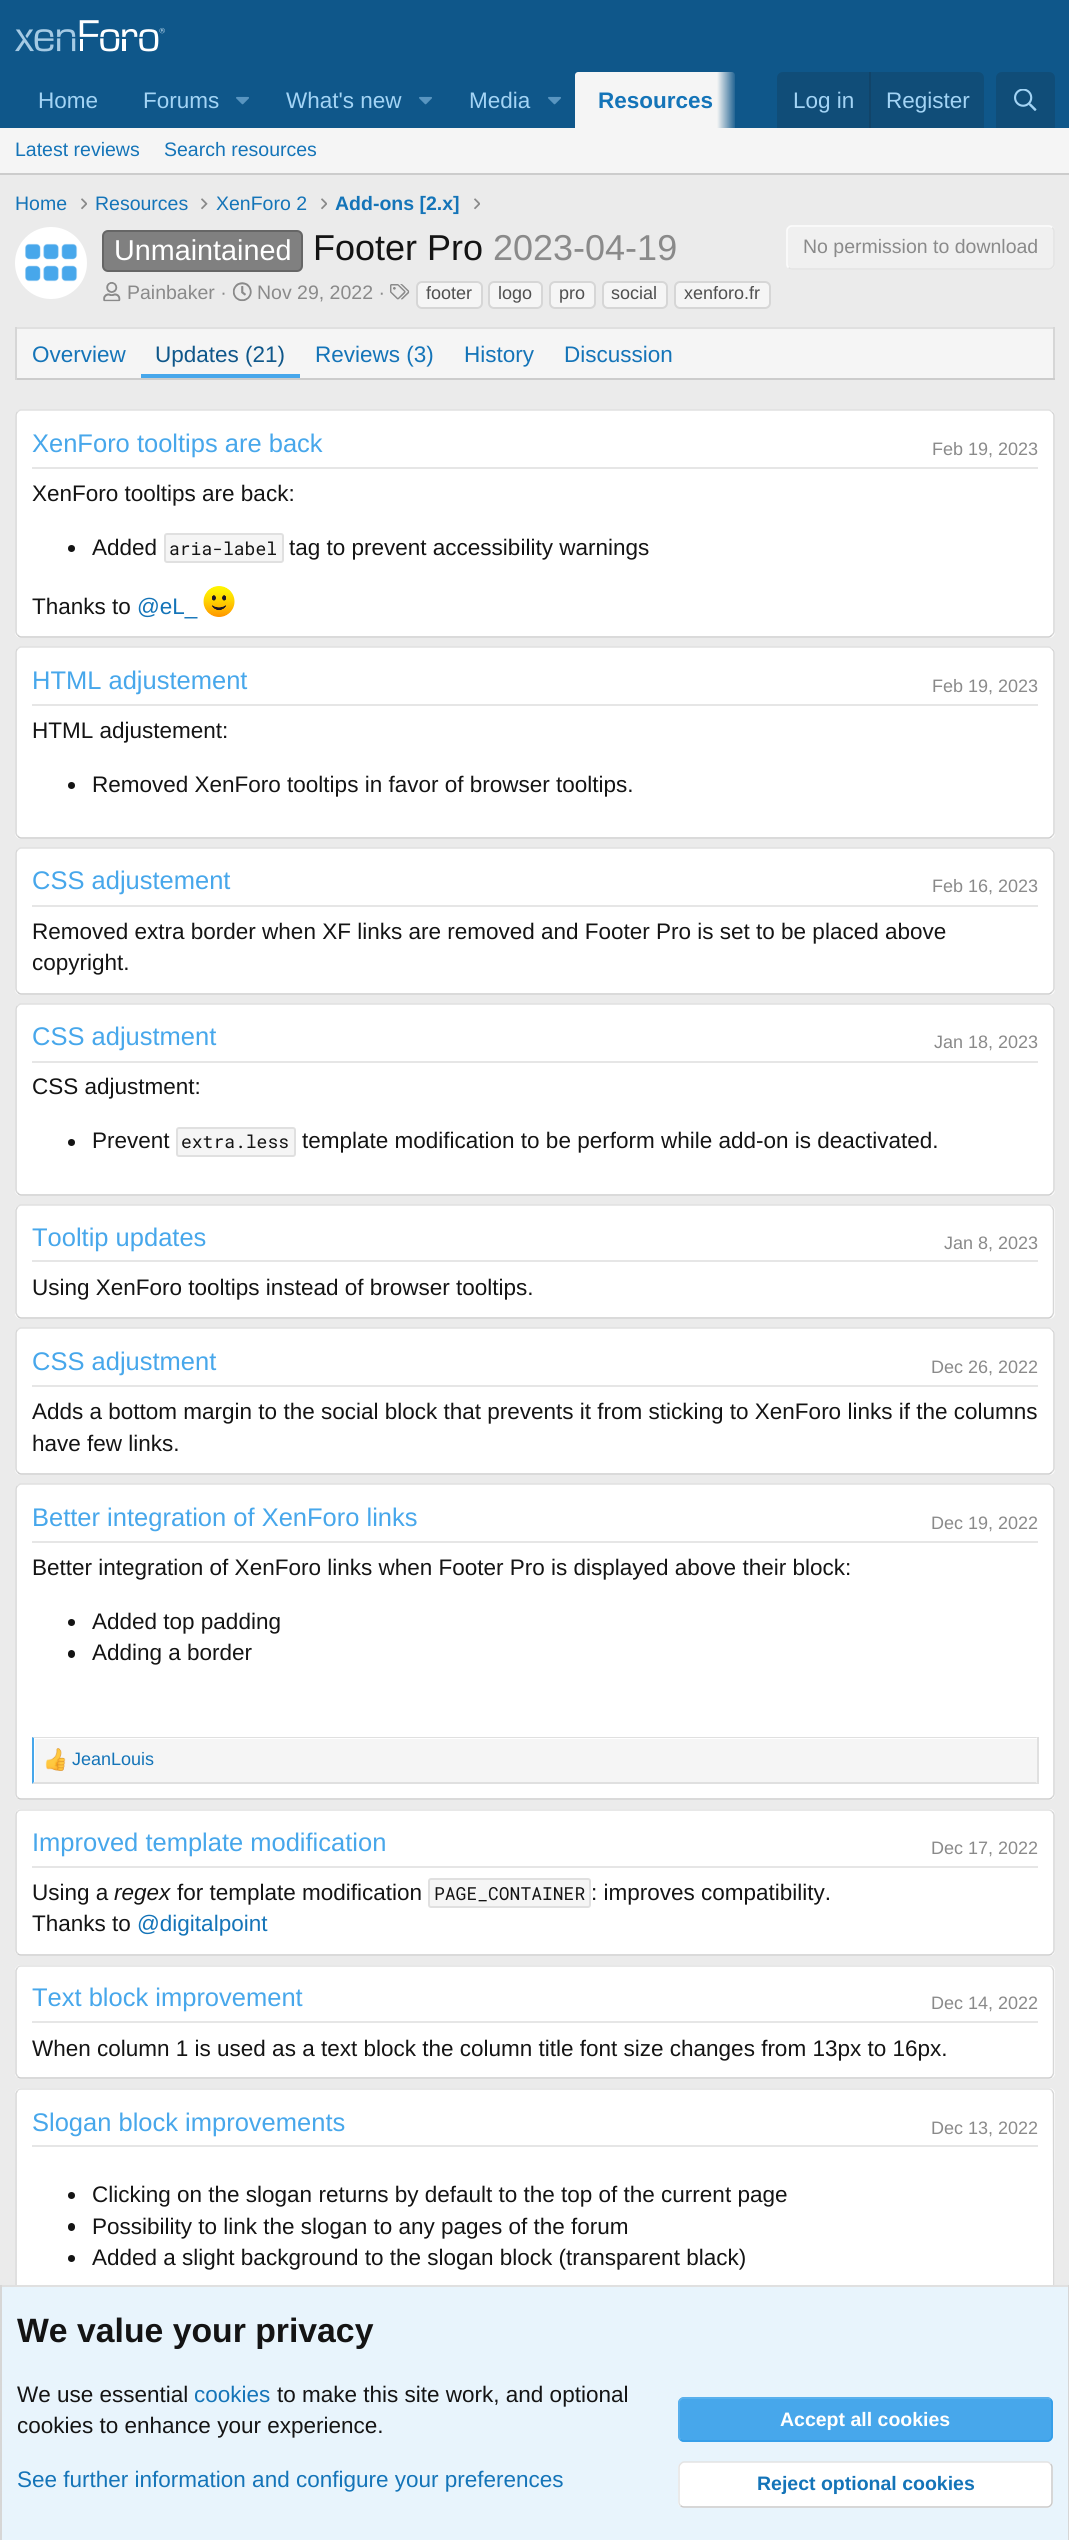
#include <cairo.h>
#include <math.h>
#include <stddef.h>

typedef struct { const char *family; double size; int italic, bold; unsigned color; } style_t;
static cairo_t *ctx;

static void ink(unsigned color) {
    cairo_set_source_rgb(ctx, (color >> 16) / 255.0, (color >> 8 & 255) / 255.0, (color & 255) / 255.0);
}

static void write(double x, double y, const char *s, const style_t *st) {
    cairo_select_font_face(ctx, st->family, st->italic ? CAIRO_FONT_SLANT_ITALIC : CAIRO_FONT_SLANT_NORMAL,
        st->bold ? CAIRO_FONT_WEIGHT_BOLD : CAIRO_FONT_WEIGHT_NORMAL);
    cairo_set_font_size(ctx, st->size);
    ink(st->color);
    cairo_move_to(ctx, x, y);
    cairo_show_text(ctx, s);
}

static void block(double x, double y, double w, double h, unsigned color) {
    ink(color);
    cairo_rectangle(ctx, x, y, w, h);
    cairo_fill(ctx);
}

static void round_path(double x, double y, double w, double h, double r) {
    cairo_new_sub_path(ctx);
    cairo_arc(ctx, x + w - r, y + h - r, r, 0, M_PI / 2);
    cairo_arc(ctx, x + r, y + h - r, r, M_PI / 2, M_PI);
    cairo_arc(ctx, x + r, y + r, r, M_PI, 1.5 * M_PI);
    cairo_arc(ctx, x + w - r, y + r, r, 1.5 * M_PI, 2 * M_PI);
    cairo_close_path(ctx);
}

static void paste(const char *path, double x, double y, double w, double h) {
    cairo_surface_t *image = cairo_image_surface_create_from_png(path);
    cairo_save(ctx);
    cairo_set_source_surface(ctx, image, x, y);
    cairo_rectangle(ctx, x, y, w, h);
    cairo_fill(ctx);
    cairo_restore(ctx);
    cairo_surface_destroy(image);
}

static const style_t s1 = {"Liberation Sans", 22.5, 0, 0, 0xa3d4f5};
static const style_t s2 = {"Liberation Sans", 22.5, 0, 1, 0x1474b8};
static const style_t s3 = {"Liberation Sans", 19.5, 0, 0, 0x1474b8};
static const style_t s4 = {"Liberation Sans", 19.5, 0, 1, 0x1474b8};
static const style_t s5 = {"Liberation Sans", 28.75, 0, 0, 0xffffff};
static const style_t s6 = {"Liberation Sans", 36, 0, 0, 0x141414};
static const style_t s7 = {"Liberation Sans", 36, 0, 0, 0x8a8a8a};
static const style_t s8 = {"Liberation Sans", 19.5, 0, 0, 0x8a8a8a};
static const style_t s9 = {"Liberation Sans", 18, 0, 0, 0x4f4f4f};
static const style_t s10 = {"Liberation Sans", 22.5, 0, 0, 0x1474b8};
static const style_t s11 = {"Liberation Sans", 22.5, 0, 0, 0x0f578a};
static const style_t s12 = {"Liberation Sans", 25.5, 0, 0, 0x47a7eb};
static const style_t s13 = {"Liberation Sans", 18, 0, 0, 0x8a8a8a};
static const style_t s14 = {"Liberation Sans", 22.5, 0, 0, 0x141414};
static const style_t s15 = {"Roboto Mono", 18, 0, 0, 0x141414};
static const style_t s16 = {"Liberation Sans", 18, 0, 0, 0x1474b8};
static const style_t s17 = {"Liberation Sans", 22.5, 1, 0, 0x141414};
static const style_t s18 = {"Liberation Sans", 33.75, 0, 1, 0x141414};
static const style_t s19 = {"Liberation Sans", 19.5, 0, 1, 0xffffff};

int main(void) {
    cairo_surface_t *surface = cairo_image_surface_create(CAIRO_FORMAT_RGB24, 1069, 2540);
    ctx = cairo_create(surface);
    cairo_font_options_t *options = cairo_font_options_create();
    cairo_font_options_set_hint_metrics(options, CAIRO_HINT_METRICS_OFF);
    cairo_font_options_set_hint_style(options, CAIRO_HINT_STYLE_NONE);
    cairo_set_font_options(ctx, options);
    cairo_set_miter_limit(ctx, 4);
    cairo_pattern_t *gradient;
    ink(0xebebeb);
    cairo_paint(ctx);
    block(0, 0, 1069, 128, 0x0f578a);
    paste("pic1.png", 15, 20, 150, 32);
    write(38, 108, "Home", &s1);
    write(143, 108, "Forums", &s1);
    paste("pic2.png", 236, 96, 13, 9);
    write(286, 108, "What's new", &s1);
    paste("pic2.png", 419, 96, 13, 9);
    write(469, 108, "Media", &s1);
    paste("pic2.png", 548, 96, 13, 9);
    ink(0xf5f5f5);
    cairo_new_path(ctx);
    cairo_move_to(ctx, 578, 72);
    cairo_line_to(ctx, 732, 72);
    cairo_curve_to(ctx, 733.5, 72, 735, 73.5, 735, 75);
    cairo_line_to(ctx, 735, 128);
    cairo_line_to(ctx, 575, 128);
    cairo_line_to(ctx, 575, 75);
    cairo_curve_to(ctx, 575, 73.5, 576.5, 72, 578, 72);
    cairo_close_path(ctx);
    cairo_fill(ctx);
    write(598, 108, "Resources", &s2);
    gradient = cairo_pattern_create_linear(717, 100, 777, 100);
    cairo_pattern_add_color_stop_rgba(gradient, 0, 0.059, 0.341, 0.541, 0);
    cairo_pattern_add_color_stop_rgba(gradient, 0.33, 0.059, 0.341, 0.541, 1);
    cairo_set_source(ctx, gradient);
    cairo_pattern_destroy(gradient);
    cairo_rectangle(ctx, 717, 72, 18, 56);
    cairo_fill(ctx);
    ink(0x104d78);
    cairo_new_path(ctx);
    cairo_move_to(ctx, 783, 72);
    cairo_line_to(ctx, 978, 72);
    cairo_curve_to(ctx, 981.5, 72, 984, 74.5, 984, 78);
    cairo_line_to(ctx, 984, 128);
    cairo_line_to(ctx, 777, 128);
    cairo_line_to(ctx, 777, 78);
    cairo_curve_to(ctx, 777, 74.5, 779.5, 72, 783, 72);
    cairo_close_path(ctx);
    cairo_fill(ctx);
    write(793, 108, "Log in", &s1);
    block(869, 72, 2, 56, 0x114469);
    write(886, 108, "Register", &s1);
    ink(0x104d78);
    cairo_new_path(ctx);
    cairo_move_to(ctx, 1002, 72);
    cairo_line_to(ctx, 1049, 72);
    cairo_curve_to(ctx, 1052.5, 72, 1055, 74.5, 1055, 78);
    cairo_line_to(ctx, 1055, 128);
    cairo_line_to(ctx, 996, 128);
    cairo_line_to(ctx, 996, 78);
    cairo_curve_to(ctx, 996, 74.5, 998.5, 72, 1002, 72);
    cairo_close_path(ctx);
    cairo_fill(ctx);
    paste("pic3.png", 1014, 89, 23, 22);
    block(0, 128, 1069, 45, 0xf5f5f5);
    block(0, 173, 1069, 2, 0xcccccc);
    write(15, 156, "Latest reviews", &s3);
    write(164, 156, "Search resources", &s3);
    write(15, 210, "Home", &s3);
    paste("pic4.png", 81, 198, 6, 12);
    write(95, 210, "Resources", &s3);
    paste("pic5.png", 201, 198, 7, 12);
    write(216, 210, "XenForo 2", &s3);
    paste("pic4.png", 321, 198, 6, 12);
    write(335, 210, "Add-ons [2.x]", &s4);
    paste("pic4.png", 474, 198, 6, 12);
    ink(0xffffff);
    cairo_arc(ctx, 51, 263, 36, 0, 2 * M_PI);
    cairo_fill(ctx);
    paste("pic6.png", 25, 243, 53, 39);
    ink(0x808080);
    round_path(103, 231, 199, 40, 5);
    cairo_fill_preserve(ctx);
    ink(0x666666);
    cairo_stroke(ctx);
    write(114, 260, "Unmaintained", &s5);
    write(313, 260, "Footer Pro", &s6);
    write(493, 260, "2023-04-19", &s7);
    ink(0xf0f0f0);
    round_path(786, 225, 269, 45, 6);
    cairo_fill(ctx);
    cairo_new_path(ctx);
    cairo_move_to(ctx, 1052, 227.5);
    cairo_curve_to(ctx, 1053, 228.5, 1054, 229.5, 1054, 231);
    cairo_line_to(ctx, 1054, 264);
    cairo_curve_to(ctx, 1054, 265.5, 1053, 266.5, 1052, 267.5);
    cairo_curve_to(ctx, 1051, 268.5, 1050, 269, 1048.5, 269);
    cairo_line_to(ctx, 792, 269);
    cairo_curve_to(ctx, 790.5, 269, 789.5, 268.5, 788.5, 267.5);
    ink(0xe3e3e3);
    cairo_set_line_width(ctx, 1.5);
    cairo_stroke(ctx);
    cairo_new_path(ctx);
    cairo_move_to(ctx, 788.5, 267.5);
    cairo_curve_to(ctx, 787.5, 266.5, 787, 265.5, 787, 264);
    cairo_line_to(ctx, 787, 231);
    cairo_curve_to(ctx, 787, 229.5, 787.5, 228.5, 788.5, 227.5);
    cairo_curve_to(ctx, 789.5, 226.5, 790.5, 226, 792, 226);
    cairo_line_to(ctx, 1048.5, 226);
    cairo_curve_to(ctx, 1050, 226, 1051, 226.5, 1052, 227.5);
    ink(0xfcfcfc);
    cairo_stroke(ctx);
    write(803, 253, "No permission to download", &s8);
    paste("pic7.png", 103, 282, 18, 20);
    write(127, 299, "Painbaker ·", &s8);
    paste("pic8.png", 232, 282, 20, 20);
    write(257, 299, "Nov 29, 2022 ·", &s8);
    paste("pic9.png", 390, 284, 20, 16);
    ink(0xf5f5f5);
    round_path(417, 282, 65, 26, 5);
    cairo_fill_preserve(ctx);
    ink(0xd6d6d6);
    cairo_set_line_width(ctx, 2);
    cairo_stroke(ctx);
    write(426, 299, "footer", &s9);
    ink(0xf5f5f5);
    round_path(489, 282, 53, 26, 5);
    cairo_fill_preserve(ctx);
    ink(0xd6d6d6);
    cairo_stroke(ctx);
    write(498, 299, "logo", &s9);
    ink(0xf5f5f5);
    round_path(550, 282, 45, 26, 5);
    cairo_fill_preserve(ctx);
    ink(0xd6d6d6);
    cairo_stroke(ctx);
    write(559, 299, "pro", &s9);
    ink(0xf5f5f5);
    round_path(603, 282, 64, 26, 5);
    cairo_fill_preserve(ctx);
    ink(0xd6d6d6);
    cairo_stroke(ctx);
    write(611, 299, "social", &s9);
    ink(0xf5f5f5);
    round_path(675, 282, 95, 26, 5);
    cairo_fill_preserve(ctx);
    ink(0xd6d6d6);
    cairo_stroke(ctx);
    write(684, 299, "xenforo.fr", &s9);
    block(17, 329, 1036, 49, 0xf5f5f5);
    block(15, 327, 1040, 2, 0xe0e0e0);
    block(1053, 327, 2, 53, 0xd6d6d6);
    block(15, 378, 1040, 2, 0xcccccc);
    block(15, 327, 2, 53, 0xd6d6d6);
    write(32, 362, "Overview", &s10);
    block(141, 374, 159, 4, 0x47a7eb);
    write(155, 362, "Updates (21)", &s11);
    write(315, 362, "Reviews (3)", &s10);
    write(464, 362, "History", &s10);
    write(564, 362, "Discussion", &s10);
    ink(0xffffff);
    round_path(15, 410, 1040, 228, 6);
    cairo_fill(ctx);
    cairo_new_path(ctx);
    cairo_move_to(ctx, 17.5, 412);
    cairo_curve_to(ctx, 18.5, 411, 19.5, 410, 21, 410);
    cairo_line_to(ctx, 1048.5, 410);
    cairo_curve_to(ctx, 1050, 410, 1051, 411, 1052, 412);
    ink(0xe0e0e0);
    cairo_set_line_width(ctx, 1.5);
    cairo_stroke(ctx);
    cairo_new_path(ctx);
    cairo_move_to(ctx, 1052, 412);
    cairo_curve_to(ctx, 1053, 413, 1054, 414, 1054, 415.5);
    cairo_line_to(ctx, 1054, 631.5);
    cairo_curve_to(ctx, 1054, 633, 1053, 634, 1052, 635);
    ink(0xd6d6d6);
    cairo_stroke(ctx);
    cairo_new_path(ctx);
    cairo_move_to(ctx, 1052, 635);
    cairo_curve_to(ctx, 1051, 636, 1050, 637, 1048.5, 637);
    cairo_line_to(ctx, 21, 637);
    cairo_curve_to(ctx, 19.5, 637, 18.5, 636, 17.5, 635);
    ink(0xcccccc);
    cairo_stroke(ctx);
    cairo_new_path(ctx);
    cairo_move_to(ctx, 17.5, 635);
    cairo_curve_to(ctx, 16.5, 634, 16, 633, 16, 631.5);
    cairo_line_to(ctx, 16, 415.5);
    cairo_curve_to(ctx, 16, 414, 16.5, 413, 17.5, 412);
    ink(0xd6d6d6);
    cairo_stroke(ctx);
    block(32, 467, 1006, 2, 0xe6e6e6);
    write(32, 452, "XenForo tooltips are back", &s12);
    write(932, 455, "Feb 19, 2023", &s13);
    write(32, 501, "XenForo tooltips are back:", &s14);
    cairo_new_path(ctx);
    cairo_arc(ctx, 71.5, 548.5, 3.5, 0, 2 * M_PI);
    cairo_fill(ctx);
    write(92, 555, "Added", &s14);
    ink(0xf5f5f5);
    round_path(165, 534, 118, 28, 2);
    cairo_fill_preserve(ctx);
    ink(0xe0e0e0);
    cairo_set_line_width(ctx, 2);
    cairo_stroke(ctx);
    write(169, 555, "aria-label", &s15);
    write(289, 555, "tag to prevent accessibility warnings", &s14);
    write(32, 614, "Thanks to", &s14);
    write(137, 614, "@eL_", &s10);
    paste("pic10.png", 203, 586, 32, 31);
    ink(0xffffff);
    round_path(15, 647, 1040, 192, 6);
    cairo_fill(ctx);
    cairo_new_path(ctx);
    cairo_move_to(ctx, 17.5, 649);
    cairo_curve_to(ctx, 18.5, 648, 19.5, 647, 21, 647);
    cairo_line_to(ctx, 1048.5, 647);
    cairo_curve_to(ctx, 1050, 647, 1051, 648, 1052, 649);
    ink(0xe0e0e0);
    cairo_set_line_width(ctx, 1.5);
    cairo_stroke(ctx);
    cairo_new_path(ctx);
    cairo_move_to(ctx, 1052, 649);
    cairo_curve_to(ctx, 1053, 650, 1054, 651, 1054, 652.5);
    cairo_line_to(ctx, 1054, 832.5);
    cairo_curve_to(ctx, 1054, 834, 1053, 835, 1052, 836);
    ink(0xd6d6d6);
    cairo_stroke(ctx);
    cairo_new_path(ctx);
    cairo_move_to(ctx, 1052, 836);
    cairo_curve_to(ctx, 1051, 837, 1050, 838, 1048.5, 838);
    cairo_line_to(ctx, 21, 838);
    cairo_curve_to(ctx, 19.5, 838, 18.5, 837, 17.5, 836);
    ink(0xcccccc);
    cairo_stroke(ctx);
    cairo_new_path(ctx);
    cairo_move_to(ctx, 17.5, 836);
    cairo_curve_to(ctx, 16.5, 835, 16, 834, 16, 832.5);
    cairo_line_to(ctx, 16, 652.5);
    cairo_curve_to(ctx, 16, 651, 16.5, 650, 17.5, 649);
    ink(0xd6d6d6);
    cairo_stroke(ctx);
    block(32, 704, 1006, 2, 0xe6e6e6);
    write(32, 689, "HTML adjustement", &s12);
    write(932, 692, "Feb 19, 2023", &s13);
    write(32, 738, "HTML adjustement:", &s14);
    cairo_new_path(ctx);
    cairo_arc(ctx, 71.5, 785.5, 3.5, 0, 2 * M_PI);
    cairo_fill(ctx);
    write(92, 792, "Removed XenForo tooltips in favor of browser tooltips.", &s14);
    ink(0xffffff);
    round_path(15, 848, 1040, 147, 6);
    cairo_fill(ctx);
    cairo_new_path(ctx);
    cairo_move_to(ctx, 17.5, 850);
    cairo_curve_to(ctx, 18.5, 849, 19.5, 848, 21, 848);
    cairo_line_to(ctx, 1048.5, 848);
    cairo_curve_to(ctx, 1050, 848, 1051, 849, 1052, 850);
    ink(0xe0e0e0);
    cairo_stroke(ctx);
    cairo_new_path(ctx);
    cairo_move_to(ctx, 1052, 850);
    cairo_curve_to(ctx, 1053, 851, 1054, 852, 1054, 853.5);
    cairo_line_to(ctx, 1054, 988.5);
    cairo_curve_to(ctx, 1054, 990, 1053, 991, 1052, 992);
    ink(0xd6d6d6);
    cairo_stroke(ctx);
    cairo_new_path(ctx);
    cairo_move_to(ctx, 1052, 992);
    cairo_curve_to(ctx, 1051, 993, 1050, 994, 1048.5, 994);
    cairo_line_to(ctx, 21, 994);
    cairo_curve_to(ctx, 19.5, 994, 18.5, 993, 17.5, 992);
    ink(0xcccccc);
    cairo_stroke(ctx);
    cairo_new_path(ctx);
    cairo_move_to(ctx, 17.5, 992);
    cairo_curve_to(ctx, 16.5, 991, 16, 990, 16, 988.5);
    cairo_line_to(ctx, 16, 853.5);
    cairo_curve_to(ctx, 16, 852, 16.5, 851, 17.5, 850);
    ink(0xd6d6d6);
    cairo_stroke(ctx);
    block(32, 905, 1006, 2, 0xe6e6e6);
    write(32, 889, "CSS adjustement", &s12);
    write(932, 892, "Feb 16, 2023", &s13);
    write(32, 939, "Removed extra border when XF links are removed and Footer Pro is set to be placed above", &s14);
    write(32, 970, "copyright.", &s14);
    ink(0xffffff);
    round_path(15, 1004, 1040, 192, 6);
    cairo_fill(ctx);
    cairo_new_path(ctx);
    cairo_move_to(ctx, 17.5, 1006);
    cairo_curve_to(ctx, 18.5, 1005, 19.5, 1004, 21, 1004);
    cairo_line_to(ctx, 1048.5, 1004);
    cairo_curve_to(ctx, 1050, 1004, 1051, 1005, 1052, 1006);
    ink(0xe0e0e0);
    cairo_stroke(ctx);
    cairo_new_path(ctx);
    cairo_move_to(ctx, 1052, 1006);
    cairo_curve_to(ctx, 1053, 1007, 1054, 1008, 1054, 1009.5);
    cairo_line_to(ctx, 1054, 1189.5);
    cairo_curve_to(ctx, 1054, 1191, 1053, 1192, 1052, 1193);
    ink(0xd6d6d6);
    cairo_stroke(ctx);
    cairo_new_path(ctx);
    cairo_move_to(ctx, 1052, 1193);
    cairo_curve_to(ctx, 1051, 1194, 1050, 1195, 1048.5, 1195);
    cairo_line_to(ctx, 21, 1195);
    cairo_curve_to(ctx, 19.5, 1195, 18.5, 1194, 17.5, 1193);
    ink(0xcccccc);
    cairo_stroke(ctx);
    cairo_new_path(ctx);
    cairo_move_to(ctx, 17.5, 1193);
    cairo_curve_to(ctx, 16.5, 1192, 16, 1191, 16, 1189.5);
    cairo_line_to(ctx, 16, 1009.5);
    cairo_curve_to(ctx, 16, 1008, 16.5, 1007, 17.5, 1006);
    ink(0xd6d6d6);
    cairo_stroke(ctx);
    block(32, 1061, 1006, 2, 0xe6e6e6);
    write(32, 1045, "CSS adjustment", &s12);
    write(934, 1048, "Jan 18, 2023", &s13);
    write(32, 1094, "CSS adjustment:", &s14);
    cairo_new_path(ctx);
    cairo_arc(ctx, 71.5, 1142.5, 3.5, 0, 2 * M_PI);
    cairo_fill(ctx);
    write(92, 1148, "Prevent", &s14);
    ink(0xf5f5f5);
    round_path(177, 1128, 118, 28, 2);
    cairo_fill_preserve(ctx);
    ink(0xe0e0e0);
    cairo_set_line_width(ctx, 2);
    cairo_stroke(ctx);
    write(181, 1148, "extra.less", &s15);
    write(302, 1148, "template modification to be perform while add-on is deactivated.", &s14);
    ink(0xffffff);
    round_path(15, 1205, 1040, 114, 6);
    cairo_fill(ctx);
    cairo_new_path(ctx);
    cairo_move_to(ctx, 17.5, 1207);
    cairo_curve_to(ctx, 18.5, 1206, 19.5, 1205, 21, 1205);
    cairo_line_to(ctx, 1048.5, 1205);
    cairo_curve_to(ctx, 1050, 1205, 1051, 1206, 1052, 1207);
    ink(0xe0e0e0);
    cairo_set_line_width(ctx, 1.5);
    cairo_stroke(ctx);
    cairo_new_path(ctx);
    cairo_move_to(ctx, 1052, 1207);
    cairo_line_to(ctx, 1053.5, 1210);
    cairo_line_to(ctx, 1053.5, 1313);
    cairo_line_to(ctx, 1052, 1316);
    ink(0xd6d6d6);
    cairo_stroke(ctx);
    cairo_new_path(ctx);
    cairo_move_to(ctx, 1052, 1316);
    cairo_curve_to(ctx, 1051, 1317, 1050, 1318, 1048.5, 1318);
    cairo_line_to(ctx, 21, 1318);
    cairo_curve_to(ctx, 19.5, 1318, 18.5, 1317, 17.5, 1316);
    ink(0xcccccc);
    cairo_stroke(ctx);
    cairo_new_path(ctx);
    cairo_move_to(ctx, 17.5, 1316);
    cairo_line_to(ctx, 16, 1313);
    cairo_line_to(ctx, 16, 1210);
    cairo_line_to(ctx, 17.5, 1207);
    ink(0xd6d6d6);
    cairo_stroke(ctx);
    block(32, 1260, 1006, 2, 0xe6e6e6);
    write(32, 1246, "Tooltip updates", &s12);
    write(944, 1249, "Jan 8, 2023", &s13);
    write(32, 1295, "Using XenForo tooltips instead of browser tooltips.", &s14);
    ink(0xffffff);
    round_path(15, 1328, 1040, 147, 6);
    cairo_fill(ctx);
    cairo_new_path(ctx);
    cairo_move_to(ctx, 17.5, 1330);
    cairo_curve_to(ctx, 18.5, 1329, 19.5, 1328, 21, 1328);
    cairo_line_to(ctx, 1048.5, 1328);
    cairo_curve_to(ctx, 1050, 1328, 1051, 1329, 1052, 1330);
    ink(0xe0e0e0);
    cairo_stroke(ctx);
    cairo_new_path(ctx);
    cairo_move_to(ctx, 1052, 1330);
    cairo_curve_to(ctx, 1053, 1331, 1054, 1332, 1054, 1333.5);
    cairo_line_to(ctx, 1054, 1468.5);
    cairo_curve_to(ctx, 1054, 1470, 1053, 1471, 1052, 1472);
    ink(0xd6d6d6);
    cairo_stroke(ctx);
    cairo_new_path(ctx);
    cairo_move_to(ctx, 1052, 1472);
    cairo_curve_to(ctx, 1051, 1473, 1050, 1474, 1048.5, 1474);
    cairo_line_to(ctx, 21, 1474);
    cairo_curve_to(ctx, 19.5, 1474, 18.5, 1473, 17.5, 1472);
    ink(0xcccccc);
    cairo_stroke(ctx);
    cairo_new_path(ctx);
    cairo_move_to(ctx, 17.5, 1472);
    cairo_curve_to(ctx, 16.5, 1471, 16, 1470, 16, 1468.5);
    cairo_line_to(ctx, 16, 1333.5);
    cairo_curve_to(ctx, 16, 1332, 16.5, 1331, 17.5, 1330);
    ink(0xd6d6d6);
    cairo_stroke(ctx);
    block(32, 1385, 1006, 2, 0xe6e6e6);
    write(32, 1370, "CSS adjustment", &s12);
    write(931, 1373, "Dec 26, 2022", &s13);
    write(32, 1419, "Adds a bottom margin to the social block that prevents it from sticking to XenForo links if the columns", &s14);
    write(32, 1451, "have few links.", &s14);
    ink(0xffffff);
    round_path(15, 1484, 1040, 316, 6);
    cairo_fill(ctx);
    cairo_new_path(ctx);
    cairo_move_to(ctx, 17.5, 1486);
    cairo_curve_to(ctx, 18.5, 1485, 19.5, 1484, 21, 1484);
    cairo_line_to(ctx, 1048.5, 1484);
    cairo_curve_to(ctx, 1050, 1484, 1051, 1485, 1052, 1486);
    ink(0xe0e0e0);
    cairo_stroke(ctx);
    cairo_new_path(ctx);
    cairo_move_to(ctx, 1052, 1486);
    cairo_curve_to(ctx, 1053, 1487, 1054, 1488, 1054, 1489.5);
    cairo_line_to(ctx, 1054, 1794);
    cairo_curve_to(ctx, 1054, 1795.5, 1053, 1796.5, 1052, 1797.5);
    ink(0xd6d6d6);
    cairo_stroke(ctx);
    cairo_new_path(ctx);
    cairo_move_to(ctx, 1052, 1797.5);
    cairo_curve_to(ctx, 1051, 1798.5, 1050, 1799, 1048.5, 1799);
    cairo_line_to(ctx, 21, 1799);
    cairo_curve_to(ctx, 19.5, 1799, 18.5, 1798.5, 17.5, 1797.5);
    ink(0xcccccc);
    cairo_stroke(ctx);
    cairo_new_path(ctx);
    cairo_move_to(ctx, 17.5, 1797.5);
    cairo_curve_to(ctx, 16.5, 1796.5, 16, 1795.5, 16, 1794);
    cairo_line_to(ctx, 16, 1489.5);
    cairo_curve_to(ctx, 16, 1488, 16.5, 1487, 17.5, 1486);
    ink(0xd6d6d6);
    cairo_stroke(ctx);
    block(32, 1541, 1006, 2, 0xe6e6e6);
    write(32, 1526, "Better integration of XenForo links", &s12);
    write(931, 1529, "Dec 19, 2022", &s13);
    write(32, 1575, "Better integration of XenForo links when Footer Pro is displayed above their block:", &s14);
    cairo_new_path(ctx);
    cairo_arc(ctx, 71.5, 1622.5, 3.5, 0, 2 * M_PI);
    cairo_fill(ctx);
    write(92, 1629, "Added top padding", &s14);
    round_path(68, 1650, 7, 8, 3.5);
    cairo_fill(ctx);
    write(92, 1660, "Adding a border", &s14);
    block(35, 1739, 1002, 43, 0xf5f5f5);
    ink(0xe0e0e0);
    cairo_new_path(ctx);
    cairo_move_to(ctx, 32, 1737);
    cairo_line_to(ctx, 1038, 1737);
    cairo_line_to(ctx, 1036, 1738);
    cairo_line_to(ctx, 34, 1738);
    cairo_close_path(ctx);
    cairo_fill(ctx);
    block(1037, 1737, 2, 47, 0xe0e0e0);
    cairo_new_path(ctx);
    cairo_move_to(ctx, 1038, 1784);
    cairo_line_to(ctx, 32, 1784);
    cairo_line_to(ctx, 34, 1782);
    cairo_line_to(ctx, 1036, 1782);
    cairo_close_path(ctx);
    cairo_fill(ctx);
    ink(0x47a7eb);
    cairo_new_path(ctx);
    cairo_move_to(ctx, 32, 1784);
    cairo_line_to(ctx, 32, 1737);
    cairo_line_to(ctx, 34, 1738);
    cairo_line_to(ctx, 34, 1782);
    cairo_close_path(ctx);
    cairo_fill(ctx);
    paste("pic11.png", 45, 1748, 21, 23);
    write(72, 1765, "JeanLouis", &s16);
    ink(0xffffff);
    round_path(15, 1809, 1040, 147, 6);
    cairo_fill(ctx);
    cairo_new_path(ctx);
    cairo_move_to(ctx, 17.5, 1811.5);
    cairo_curve_to(ctx, 18.5, 1810.5, 19.5, 1810, 21, 1810);
    cairo_line_to(ctx, 1048.5, 1810);
    cairo_curve_to(ctx, 1050, 1810, 1051, 1810.5, 1052, 1811.5);
    ink(0xe0e0e0);
    cairo_stroke(ctx);
    cairo_new_path(ctx);
    cairo_move_to(ctx, 1052, 1811.5);
    cairo_curve_to(ctx, 1053, 1812.5, 1054, 1813.5, 1054, 1815);
    cairo_line_to(ctx, 1054, 1950);
    cairo_curve_to(ctx, 1054, 1951.5, 1053, 1952.5, 1052, 1953.5);
    ink(0xd6d6d6);
    cairo_stroke(ctx);
    cairo_new_path(ctx);
    cairo_move_to(ctx, 1052, 1953.5);
    cairo_curve_to(ctx, 1051, 1954.5, 1050, 1955, 1048.5, 1955);
    cairo_line_to(ctx, 21, 1955);
    cairo_curve_to(ctx, 19.5, 1955, 18.5, 1954.5, 17.5, 1953.5);
    ink(0xcccccc);
    cairo_stroke(ctx);
    cairo_new_path(ctx);
    cairo_move_to(ctx, 17.5, 1953.5);
    cairo_curve_to(ctx, 16.5, 1952.5, 16, 1951.5, 16, 1950);
    cairo_line_to(ctx, 16, 1815);
    cairo_curve_to(ctx, 16, 1813.5, 16.5, 1812.5, 17.5, 1811.5);
    ink(0xd6d6d6);
    cairo_stroke(ctx);
    block(32, 1866, 1006, 2, 0xe6e6e6);
    write(32, 1851, "Improved template modification", &s12);
    write(931, 1854, "Dec 17, 2022", &s13);
    write(32, 1900, "Using a", &s14);
    write(114, 1900, "regex", &s17);
    write(177, 1900, "for template modification", &s14);
    ink(0xf5f5f5);
    round_path(429, 1879, 161, 28, 2);
    cairo_fill_preserve(ctx);
    ink(0xe0e0e0);
    cairo_set_line_width(ctx, 2);
    cairo_stroke(ctx);
    write(434, 1900, "PAGE_CONTAINER", &s15);
    write(591, 1900, ": improves compatibility.", &s14);
    write(32, 1931, "Thanks to", &s14);
    write(137, 1931, "@digitalpoint", &s10);
    ink(0xffffff);
    round_path(15, 1965, 1040, 114, 6);
    cairo_fill(ctx);
    cairo_new_path(ctx);
    cairo_move_to(ctx, 17.5, 1967.5);
    cairo_curve_to(ctx, 18.5, 1966.5, 19.5, 1966, 21, 1966);
    cairo_line_to(ctx, 1048.5, 1966);
    cairo_curve_to(ctx, 1050, 1966, 1051, 1966.5, 1052, 1967.5);
    ink(0xe0e0e0);
    cairo_set_line_width(ctx, 1.5);
    cairo_stroke(ctx);
    cairo_new_path(ctx);
    cairo_move_to(ctx, 1052, 1967.5);
    cairo_line_to(ctx, 1053.5, 1970.5);
    cairo_line_to(ctx, 1053.5, 2073.5);
    cairo_line_to(ctx, 1052, 2076.5);
    ink(0xd6d6d6);
    cairo_stroke(ctx);
    cairo_new_path(ctx);
    cairo_move_to(ctx, 1052, 2076.5);
    cairo_curve_to(ctx, 1051, 2077.5, 1050, 2078, 1048.5, 2078);
    cairo_line_to(ctx, 21, 2078);
    cairo_curve_to(ctx, 19.5, 2078, 18.5, 2077.5, 17.5, 2076.5);
    ink(0xcccccc);
    cairo_stroke(ctx);
    cairo_new_path(ctx);
    cairo_move_to(ctx, 17.5, 2076.5);
    cairo_line_to(ctx, 16, 2073.5);
    cairo_line_to(ctx, 16, 1970.5);
    cairo_line_to(ctx, 17.5, 1967.5);
    ink(0xd6d6d6);
    cairo_stroke(ctx);
    block(32, 2021, 1006, 2, 0xe6e6e6);
    write(32, 2006, "Text block improvement", &s12);
    write(931, 2009, "Dec 14, 2022", &s13);
    write(32, 2056, "When column 1 is used as a text block the column title font size changes from 13px to 16px.", &s14);
    ink(0xffffff);
    round_path(15, 2088, 1040, 285, 6);
    cairo_fill(ctx);
    cairo_new_path(ctx);
    cairo_move_to(ctx, 17.5, 2090.5);
    cairo_curve_to(ctx, 18.5, 2089.5, 19.5, 2089, 21, 2089);
    cairo_line_to(ctx, 1048.5, 2089);
    cairo_curve_to(ctx, 1050, 2089, 1051, 2089.5, 1052, 2090.5);
    ink(0xe0e0e0);
    cairo_stroke(ctx);
    cairo_new_path(ctx);
    cairo_move_to(ctx, 1052, 2090.5);
    cairo_line_to(ctx, 1053.5, 2093.5);
    cairo_line_to(ctx, 1054, 2367);
    cairo_curve_to(ctx, 1053.5, 2368.5, 1053, 2369.5, 1052, 2370.5);
    ink(0xd6d6d6);
    cairo_stroke(ctx);
    cairo_new_path(ctx);
    cairo_move_to(ctx, 17.5, 2370.5);
    cairo_curve_to(ctx, 16.5, 2369.5, 16, 2368.5, 16, 2367);
    cairo_line_to(ctx, 16, 2093.5);
    cairo_line_to(ctx, 17.5, 2090.5);
    cairo_stroke(ctx);
    block(32, 2145, 1006, 2, 0xe6e6e6);
    write(32, 2131, "Slogan block improvements", &s12);
    write(931, 2134, "Dec 13, 2022", &s13);
    ink(0x141414);
    cairo_new_path(ctx);
    cairo_arc(ctx, 71.5, 2195.5, 3.5, 0, 2 * M_PI);
    cairo_fill(ctx);
    write(92, 2202, "Clicking on the slogan returns by default to the top of the current page", &s14);
    round_path(68, 2223, 7, 8, 3.5);
    cairo_fill(ctx);
    write(92, 2234, "Possibility to link the slogan to any pages of the forum", &s14);
    cairo_new_path(ctx);
    cairo_arc(ctx, 71.5, 2258.5, 3.5, 0, 2 * M_PI);
    cairo_fill(ctx);
    write(92, 2265, "Added a slight background to the slogan block (transparent black)", &s14);
    block(2, 2287, 1066, 253, 0xe8f4fc);
    block(0, 2285, 1069, 2, 0xe0e0e0);
    block(1068, 2285, 1, 255, 0xd6d6d6);
    block(0, 2285, 2, 255, 0xd6d6d6);
    write(17, 2342, "We value your privacy", &s18);
    write(17, 2402, "We use essential", &s14);
    write(194, 2402, "cookies", &s10);
    write(277, 2402, "to make this site work, and optional", &s14);
    write(17, 2433, "cookies to enhance your experience.", &s14);
    write(17, 2487, "See further information and configure your preferences", &s10);
    ink(0x47a7eb);
    round_path(678, 2397, 375, 45, 6);
    cairo_fill(ctx);
    cairo_new_path(ctx);
    cairo_move_to(ctx, 1050.5, 2399.5);
    cairo_curve_to(ctx, 1051.5, 2400.5, 1052, 2401.5, 1052, 2403);
    cairo_line_to(ctx, 1052, 2436);
    cairo_curve_to(ctx, 1052, 2437.5, 1051.5, 2438.5, 1050.5, 2439.5);
    cairo_curve_to(ctx, 1049.5, 2440.5, 1048.5, 2441, 1047, 2441);
    cairo_line_to(ctx, 684, 2441);
    cairo_curve_to(ctx, 682.5, 2441, 681.5, 2440.5, 680.5, 2439.5);
    ink(0x309ce8);
    cairo_stroke(ctx);
    cairo_new_path(ctx);
    cairo_move_to(ctx, 680.5, 2439.5);
    cairo_curve_to(ctx, 679.5, 2438.5, 679, 2437.5, 679, 2436);
    cairo_line_to(ctx, 679, 2403);
    cairo_curve_to(ctx, 679, 2401.5, 679.5, 2400.5, 680.5, 2399.5);
    cairo_curve_to(ctx, 681.5, 2398.5, 682.5, 2398, 684, 2398);
    cairo_line_to(ctx, 1047, 2398);
    cairo_curve_to(ctx, 1048.5, 2398, 1049.5, 2398.5, 1050.5, 2399.5);
    ink(0x5eb2ed);
    cairo_stroke(ctx);
    write(780, 2426, "Accept all cookies", &s19);
    round_path(678, 2462, 375, 46, 6);
    cairo_fill(ctx);
    cairo_new_path(ctx);
    cairo_move_to(ctx, 1050.5, 2464);
    cairo_curve_to(ctx, 1051.5, 2465, 1052, 2466, 1052, 2467.5);
    cairo_line_to(ctx, 1052, 2502);
    cairo_curve_to(ctx, 1052, 2503.5, 1051.5, 2504.5, 1050.5, 2505.5);
    cairo_curve_to(ctx, 1049.5, 2506.5, 1048.5, 2507, 1047, 2507);
    cairo_line_to(ctx, 684, 2507);
    cairo_curve_to(ctx, 682.5, 2507, 681.5, 2506.5, 680.5, 2505.5);
    ink(0xc9c9c9);
    cairo_stroke(ctx);
    cairo_new_path(ctx);
    cairo_move_to(ctx, 680.5, 2505.5);
    cairo_curve_to(ctx, 679.5, 2504.5, 679, 2503.5, 679, 2502);
    cairo_line_to(ctx, 679, 2467.5);
    cairo_curve_to(ctx, 679, 2466, 679.5, 2465, 680.5, 2464);
    cairo_curve_to(ctx, 681.5, 2463, 682.5, 2462, 684, 2462);
    cairo_line_to(ctx, 1047, 2462);
    cairo_curve_to(ctx, 1048.5, 2462, 1049.5, 2463, 1050.5, 2464);
    ink(0xe3e3e3);
    cairo_stroke(ctx);
    write(757, 2490, "Reject optional cookies", &s4);
    cairo_surface_write_to_png(surface, "screenshot.png");
    cairo_font_options_destroy(options);
    cairo_destroy(ctx);
    cairo_surface_destroy(surface);
    return 0;
}
